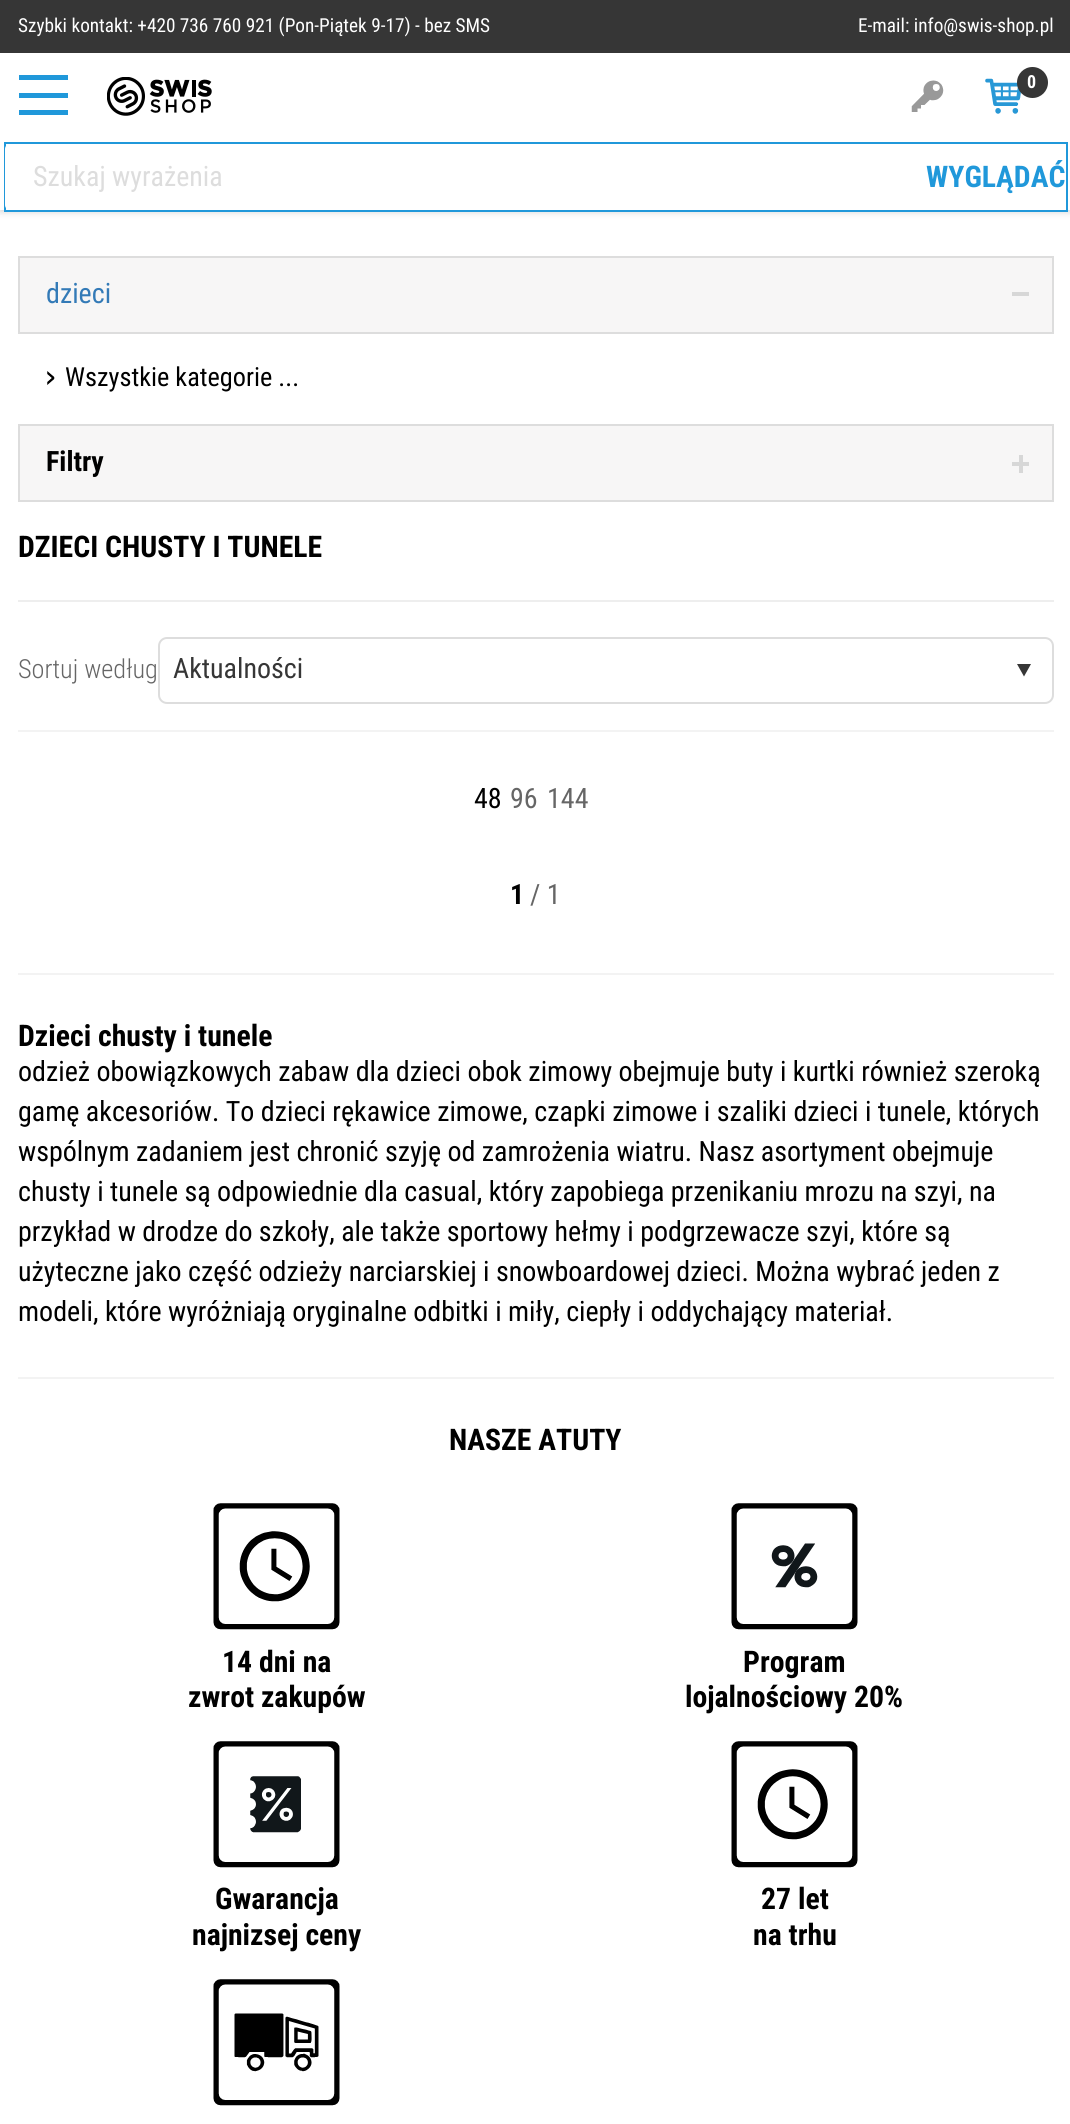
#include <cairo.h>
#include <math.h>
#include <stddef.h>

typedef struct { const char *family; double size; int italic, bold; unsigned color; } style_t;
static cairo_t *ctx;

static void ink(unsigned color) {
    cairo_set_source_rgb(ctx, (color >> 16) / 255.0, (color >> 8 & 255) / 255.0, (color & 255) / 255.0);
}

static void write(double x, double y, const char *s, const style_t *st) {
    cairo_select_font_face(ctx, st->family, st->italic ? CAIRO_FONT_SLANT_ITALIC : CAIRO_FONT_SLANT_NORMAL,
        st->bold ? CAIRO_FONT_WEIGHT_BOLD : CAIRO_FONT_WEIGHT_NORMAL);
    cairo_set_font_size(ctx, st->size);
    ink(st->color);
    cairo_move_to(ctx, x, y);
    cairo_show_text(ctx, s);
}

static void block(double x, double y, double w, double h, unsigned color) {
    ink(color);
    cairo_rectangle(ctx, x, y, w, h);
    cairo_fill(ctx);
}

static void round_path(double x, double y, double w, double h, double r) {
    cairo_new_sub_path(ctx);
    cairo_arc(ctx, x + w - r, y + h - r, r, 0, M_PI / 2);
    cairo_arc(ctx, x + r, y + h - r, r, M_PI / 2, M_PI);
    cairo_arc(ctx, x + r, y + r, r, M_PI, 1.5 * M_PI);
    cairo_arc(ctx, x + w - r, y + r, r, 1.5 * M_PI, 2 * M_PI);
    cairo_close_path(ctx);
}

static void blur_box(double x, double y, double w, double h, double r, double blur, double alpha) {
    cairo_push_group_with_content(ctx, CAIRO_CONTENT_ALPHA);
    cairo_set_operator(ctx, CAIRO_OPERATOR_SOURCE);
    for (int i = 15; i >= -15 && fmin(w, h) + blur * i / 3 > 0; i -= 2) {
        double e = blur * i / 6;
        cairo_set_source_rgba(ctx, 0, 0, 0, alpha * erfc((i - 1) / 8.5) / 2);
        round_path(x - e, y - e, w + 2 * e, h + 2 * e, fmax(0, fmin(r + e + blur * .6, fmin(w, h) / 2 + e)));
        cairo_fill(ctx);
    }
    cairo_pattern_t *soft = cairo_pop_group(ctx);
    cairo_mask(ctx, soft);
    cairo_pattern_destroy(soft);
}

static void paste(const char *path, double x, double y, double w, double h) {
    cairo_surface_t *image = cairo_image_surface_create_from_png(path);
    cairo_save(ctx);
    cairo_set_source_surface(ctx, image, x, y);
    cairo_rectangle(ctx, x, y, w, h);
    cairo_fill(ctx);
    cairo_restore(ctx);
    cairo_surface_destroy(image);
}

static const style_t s1 = {"Roboto Condensed", 19.25, 0, 0, 0xffffff};
static const style_t s2 = {"Roboto Condensed", 18, 0, 1, 0xffffff};
static const style_t s3 = {"Roboto Condensed", 28, 0, 0, 0xdddddd};
static const style_t s4 = {"Roboto Condensed", 29.75, 0, 1, 0x2098da};
static const style_t s5 = {"Roboto Condensed", 28, 0, 0, 0x337ab7};
static const style_t s6 = {"Roboto Condensed", 26.25, 0, 0, 0x000000};
static const style_t s7 = {"Roboto Condensed", 28, 0, 1, 0x000000};
static const style_t s8 = {"Roboto Condensed", 29.75, 0, 1, 0x000000};
static const style_t s9 = {"Roboto Condensed Light", 26.25, 0, 0, 0x666666};
static const style_t s10 = {"Roboto Condensed", 28, 0, 0, 0x363636};
static const style_t s11 = {"Roboto Condensed", 28, 0, 0, 0x000000};
static const style_t s12 = {"Roboto Condensed", 28, 0, 0, 0x666666};

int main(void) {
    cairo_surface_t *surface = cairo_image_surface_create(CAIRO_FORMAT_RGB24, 1070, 2124);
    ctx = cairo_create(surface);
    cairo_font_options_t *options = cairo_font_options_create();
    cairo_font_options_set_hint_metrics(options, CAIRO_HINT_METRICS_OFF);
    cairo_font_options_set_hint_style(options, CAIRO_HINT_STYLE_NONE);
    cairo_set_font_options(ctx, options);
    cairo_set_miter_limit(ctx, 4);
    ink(0xffffff);
    cairo_paint(ctx);
    ink(0x000000);
    blur_box(0, 0, 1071, 210, 0, 4.5, 0.25);
    block(0, 53, 1070, 157, 0xffffff);
    block(0, 0, 1070, 53, 0x363636);
    write(18, 32, "Szybki kontakt: +420 736 760 921 (Pon-Piątek 9-17) - bez SMS", &s1);
    write(858, 32, "E-mail: info@swis-shop.pl", &s1);
    paste("pic1.png", 107, 77, 105, 39);
    paste("pic2.png", 911, 80, 33, 32);
    paste("pic3.png", 985, 78, 36, 36);
    ink(0x363636);
    cairo_arc(ctx, 1032.5, 82.5, 15.5, 0, 2 * M_PI);
    cairo_fill(ctx);
    write(1027, 88, "0", &s2);
    cairo_rectangle(ctx, 5, 143, 1062, 68);
    ink(0x2098da);
    cairo_stroke(ctx);
    ink(0xffffff);
    round_path(5, 144, 895, 66, 5);
    cairo_fill(ctx);
    write(33, 186, "Szukaj wyrażenia", &s3);
    write(926, 187, "WYGLĄDAĆ", &s4);
    block(19, 93, 49, 5, 0x2098da);
    block(19, 75, 49, 5, 0x2098da);
    block(19, 110, 49, 5, 0x2098da);
    ink(0xf7f6f6);
    cairo_rectangle(ctx, 19, 257, 1034, 76);
    cairo_fill_preserve(ctx);
    ink(0xdddddd);
    cairo_stroke(ctx);
    write(46, 303, "dzieci", &s5);
    block(1012, 292, 17, 4, 0xd7d7d7);
    paste("pic4.png", 47, 371, 8, 14);
    write(65, 386, "Wszystkie kategorie ...", &s6);
    ink(0xf7f6f6);
    cairo_rectangle(ctx, 19, 425, 1034, 76);
    cairo_fill_preserve(ctx);
    ink(0xdddddd);
    cairo_stroke(ctx);
    write(46, 471, "Filtry", &s7);
    block(1012, 462, 17, 4, 0xd7d7d7);
    block(1019, 455, 4, 18, 0xd7d7d7);
    write(18, 557, "DZIECI CHUSTY I TUNELE", &s8);
    block(18, 600, 1036, 2, 0xeeeeee);
    write(18, 678, "Sortuj według", &s9);
    round_path(159, 638, 894, 65, 8);
    ink(0xdddddd);
    cairo_stroke(ctx);
    write(173, 678, "Aktualności", &s10);
    cairo_new_path(ctx);
    cairo_move_to(ctx, 1017, 664);
    cairo_line_to(ctx, 1031, 664);
    cairo_line_to(ctx, 1024, 676.5);
    cairo_close_path(ctx);
    cairo_fill(ctx);
    block(18, 730, 1036, 2, 0xf3f3f3);
    write(474, 808, "48", &s11);
    write(510, 808, "96", &s12);
    write(547, 808, "144", &s12);
    write(510, 904, "1", &s7);
    write(530, 904, "/ 1", &s12);
    block(18, 973, 1036, 2, 0xf3f3f3);
    write(18, 1046, "Dzieci chusty i tunele", &s8);
    write(18, 1081, "odzież obowiązkowych zabaw dla dzieci obok zimowy obejmuje buty i kurtki również szeroką", &s11);
    write(18, 1121, "gamę akcesoriów. To dzieci rękawice zimowe, czapki zimowe i szaliki dzieci i tunele, których", &s11);
    write(18, 1161, "wspólnym zadaniem jest chronić szyję od zamrożenia wiatru. Nasz asortyment obejmuje", &s11);
    write(18, 1201, "chusty i tunele są odpowiednie dla casual, który zapobiega przenikaniu mrozu na szyi, na", &s11);
    write(18, 1241, "przykład w drodze do szkoły, ale także sportowy hełmy i podgrzewacze szyi, które są", &s11);
    write(18, 1281, "użyteczne jako część odzieży narciarskiej i snowboardowej dzieci. Można wybrać jeden z", &s11);
    write(18, 1321, "modeli, które wyróżniają oryginalne odbitki i miły, ciepły i oddychający materiał.", &s11);
    block(18, 1377, 1036, 2, 0xf3f3f3);
    write(449, 1450, "NASZE ATUTY", &s8);
    paste("pic5.png", 213, 1503, 127, 127);
    write(222, 1672, "14 dni na", &s8);
    write(188, 1707, "zwrot zakupów", &s8);
    paste("pic6.png", 731, 1503, 127, 127);
    write(743, 1672, "Program", &s8);
    write(685, 1707, "lojalnościowy 20%", &s8);
    paste("pic7.png", 213, 1741, 127, 127);
    write(215, 1909, "Gwarancja", &s8);
    write(192, 1945, "najnizsej ceny", &s8);
    paste("pic8.png", 731, 1741, 127, 127);
    write(761, 1909, "27 let", &s8);
    write(753, 1945, "na trhu", &s8);
    paste("pic9.png", 213, 1979, 127, 127);
    cairo_surface_write_to_png(surface, "screenshot.png");
    cairo_font_options_destroy(options);
    cairo_destroy(ctx);
    cairo_surface_destroy(surface);
    return 0;
}
